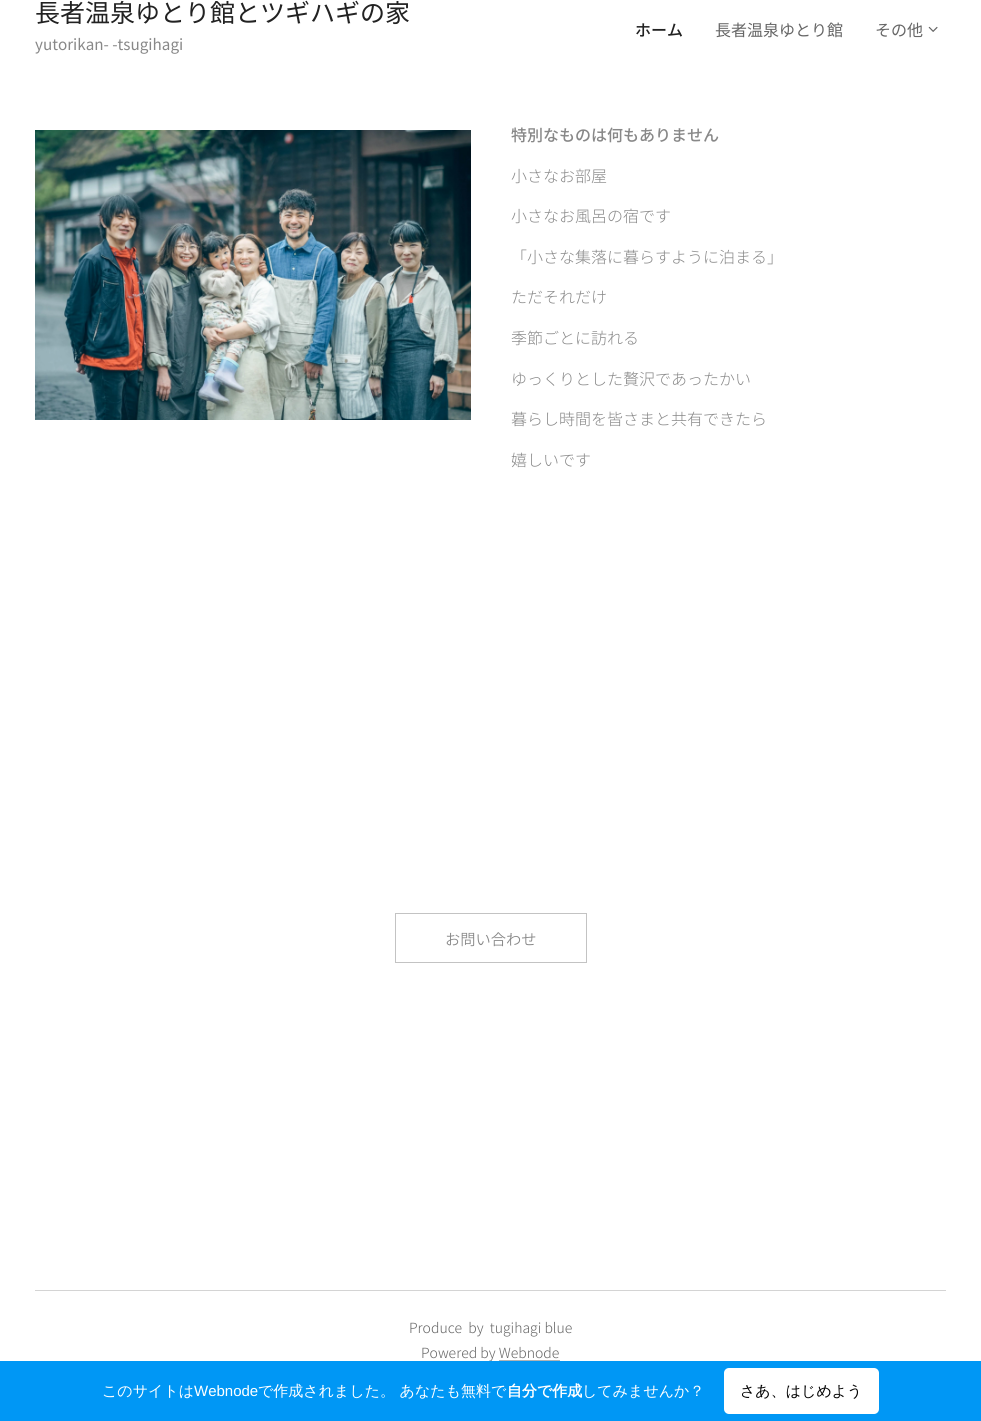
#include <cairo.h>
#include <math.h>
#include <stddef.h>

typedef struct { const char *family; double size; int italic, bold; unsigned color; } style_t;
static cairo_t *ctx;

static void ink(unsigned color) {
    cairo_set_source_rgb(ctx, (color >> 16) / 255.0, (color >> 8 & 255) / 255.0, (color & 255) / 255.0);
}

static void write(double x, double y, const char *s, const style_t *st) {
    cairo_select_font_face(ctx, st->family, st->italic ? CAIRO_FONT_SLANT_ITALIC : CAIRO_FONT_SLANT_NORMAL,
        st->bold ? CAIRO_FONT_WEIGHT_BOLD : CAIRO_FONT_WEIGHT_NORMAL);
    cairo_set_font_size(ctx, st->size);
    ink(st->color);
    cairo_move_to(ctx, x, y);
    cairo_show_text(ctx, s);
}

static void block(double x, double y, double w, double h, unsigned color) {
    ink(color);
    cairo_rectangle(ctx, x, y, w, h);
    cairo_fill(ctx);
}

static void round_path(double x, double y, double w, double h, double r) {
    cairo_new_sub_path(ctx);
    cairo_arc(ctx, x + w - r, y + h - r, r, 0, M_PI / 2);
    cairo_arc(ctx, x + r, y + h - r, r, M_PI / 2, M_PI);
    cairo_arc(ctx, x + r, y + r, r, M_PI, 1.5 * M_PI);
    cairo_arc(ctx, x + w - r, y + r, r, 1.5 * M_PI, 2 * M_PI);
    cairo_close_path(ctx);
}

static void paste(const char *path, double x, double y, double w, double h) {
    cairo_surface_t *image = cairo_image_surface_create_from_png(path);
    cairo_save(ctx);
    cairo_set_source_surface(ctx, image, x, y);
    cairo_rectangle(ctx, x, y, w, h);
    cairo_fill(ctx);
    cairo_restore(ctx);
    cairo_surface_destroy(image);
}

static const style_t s1 = {"Noto Sans JP", 25, 0, 0, 0x222222};
static const style_t s2 = {"Noto Sans JP", 15.25, 0, 0, 0x888888};
static const style_t s3 = {"Noto Sans JP Medium", 16, 0, 0, 0x222222};
static const style_t s4 = {"Noto Sans JP", 16, 0, 0, 0x666666};
static const style_t s5 = {"Noto Sans JP Medium", 16, 0, 0, 0x888888};
static const style_t s6 = {"Noto Sans JP Light", 16, 0, 0, 0x888888};
static const style_t s7 = {"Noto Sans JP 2 Light", 15.25, 0, 0, 0x888888};
static const style_t s8 = {"Noto Sans JP Light", 14, 0, 0, 0x666666};
static const style_t s9 = {"WenQuanYi Zen Hei Medium", 15, 0, 0, 0xffffff};
static const style_t s10 = {"Liberation Sans", 15, 0, 0, 0xffffff};
static const style_t s11 = {"WenQuanYi Zen Hei", 15, 0, 1, 0xffffff};
static const style_t s12 = {"WenQuanYi Zen Hei Medium", 15, 0, 0, 0x000000};

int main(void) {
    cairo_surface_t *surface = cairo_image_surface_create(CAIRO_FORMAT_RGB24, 981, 1421);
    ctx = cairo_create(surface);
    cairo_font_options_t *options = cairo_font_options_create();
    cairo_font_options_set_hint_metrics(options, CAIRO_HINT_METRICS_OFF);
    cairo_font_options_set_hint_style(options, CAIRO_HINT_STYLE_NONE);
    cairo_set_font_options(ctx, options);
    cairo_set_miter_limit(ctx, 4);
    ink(0xffffff);
    cairo_paint(ctx);
    write(35, 22, "長者温泉ゆとり館とツギハギの家", &s1);
    write(35, 50, "yutorikan- -tsugihagi", &s2);
    write(635, 36, "ホーム", &s3);
    write(715, 36, "長者温泉ゆとり館", &s4);
    write(875, 36, "その他", &s4);
    paste("pic1.png", 928, 26, 10, 6);
    paste("pic2.png", 35, 130, 436, 290);
    write(511, 141, "特別なものは何もありません", &s5);
    write(511, 182, "小さなお部屋", &s6);
    write(511, 222, "小さなお風呂の宿です", &s6);
    write(511, 263, "「小さな集落に暮らすように泊まる」", &s6);
    write(511, 303, "ただそれだけ", &s6);
    write(511, 344, "季節ごとに訪れる", &s6);
    write(511, 385, "ゆっくりとした贅沢であったかい", &s6);
    write(511, 425, "暮らし時間を皆さまと共有できたら", &s6);
    write(511, 466, "嬉しいです", &s6);
    cairo_rectangle(ctx, 395.5, 913.5, 191, 49);
    ink(0xc3c3c3);
    cairo_set_line_width(ctx, 1);
    cairo_stroke(ctx);
    write(445, 945, "お問い合わせ", &s7);
    block(35, 1290, 911, 1, 0xd4d4d4);
    write(409, 1333, "Produce  by  tugihagi blue", &s8);
    write(421, 1358, "Powered by Webnode", &s8);
    block(499, 1360, 61, 1, 0xb3b3b3);
    block(0, 1361, 981, 60, 0x0097f5);
    write(102, 1396, "このサイトは", &s9);
    write(194, 1396, "Webnode", &s10);
    write(258, 1396, "で作成されました。 あなたも無料で", &s9);
    write(507, 1396, "自分で作成", &s11);
    write(582, 1396, "してみませんか？", &s9);
    round_path(724, 1368, 155, 46, 5);
    cairo_fill(ctx);
    write(740, 1396, "さあ、はじめよう", &s12);
    cairo_surface_write_to_png(surface, "screenshot.png");
    cairo_font_options_destroy(options);
    cairo_destroy(ctx);
    cairo_surface_destroy(surface);
    return 0;
}
